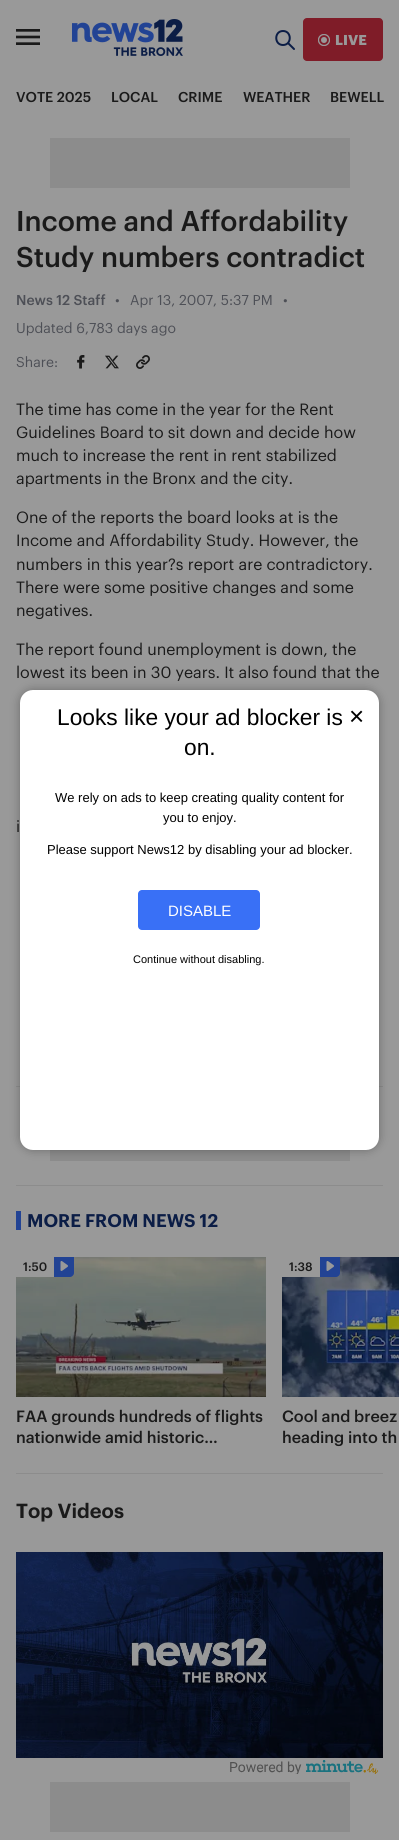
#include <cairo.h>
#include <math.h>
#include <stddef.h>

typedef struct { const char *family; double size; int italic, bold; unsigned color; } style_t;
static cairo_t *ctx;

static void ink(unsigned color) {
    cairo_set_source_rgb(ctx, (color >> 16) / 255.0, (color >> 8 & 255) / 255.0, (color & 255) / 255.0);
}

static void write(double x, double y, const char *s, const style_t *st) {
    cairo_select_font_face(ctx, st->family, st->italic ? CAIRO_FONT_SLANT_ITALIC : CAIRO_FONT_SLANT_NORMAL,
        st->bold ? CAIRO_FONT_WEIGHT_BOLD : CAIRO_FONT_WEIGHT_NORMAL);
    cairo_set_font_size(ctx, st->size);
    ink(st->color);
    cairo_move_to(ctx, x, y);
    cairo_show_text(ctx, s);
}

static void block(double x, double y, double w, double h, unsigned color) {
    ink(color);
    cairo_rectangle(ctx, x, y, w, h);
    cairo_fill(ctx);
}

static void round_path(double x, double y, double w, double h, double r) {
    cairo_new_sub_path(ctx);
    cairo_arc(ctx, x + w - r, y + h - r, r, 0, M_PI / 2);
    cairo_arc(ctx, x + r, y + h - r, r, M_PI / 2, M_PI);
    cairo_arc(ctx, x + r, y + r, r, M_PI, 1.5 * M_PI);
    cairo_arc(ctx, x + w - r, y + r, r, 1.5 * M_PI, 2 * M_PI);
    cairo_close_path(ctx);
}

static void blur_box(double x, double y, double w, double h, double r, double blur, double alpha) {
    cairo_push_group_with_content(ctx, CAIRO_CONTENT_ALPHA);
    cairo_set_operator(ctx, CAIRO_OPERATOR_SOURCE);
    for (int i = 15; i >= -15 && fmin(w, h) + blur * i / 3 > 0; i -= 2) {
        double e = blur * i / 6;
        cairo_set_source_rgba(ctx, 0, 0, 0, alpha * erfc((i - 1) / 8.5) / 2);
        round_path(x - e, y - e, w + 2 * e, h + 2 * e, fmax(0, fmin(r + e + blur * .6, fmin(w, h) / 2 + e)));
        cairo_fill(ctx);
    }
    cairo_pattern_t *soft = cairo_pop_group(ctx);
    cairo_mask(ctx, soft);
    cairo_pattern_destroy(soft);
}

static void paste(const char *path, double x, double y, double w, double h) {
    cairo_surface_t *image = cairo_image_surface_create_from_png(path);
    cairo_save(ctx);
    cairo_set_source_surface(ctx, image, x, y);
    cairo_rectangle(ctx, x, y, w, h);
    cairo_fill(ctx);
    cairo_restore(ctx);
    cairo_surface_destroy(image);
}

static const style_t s1 = {"Graphik", 14, 0, 1, 0x999999};
static const style_t s2 = {"Graphik Medium", 14, 0, 0, 0x1a1a1a};
static const style_t s3 = {"Graphik Medium", 28, 0, 0, 0x1a1a1a};
static const style_t s4 = {"Graphik Medium", 14, 0, 0, 0x4d4f56};
static const style_t s5 = {"Graphik", 14, 0, 0, 0x4d4f56};
static const style_t s6 = {"Graphik", 16, 0, 0, 0x1a1a1a};
static const style_t s7 = {"Graphik SemiBold", 18, 0, 0, 0x0b1d46};
static const style_t s8 = {"Graphik Medium", 12, 0, 0, 0x1a1a1a};
static const style_t s9 = {"Graphik Medium", 16, 0, 0, 0x1a1a1a};
static const style_t s10 = {"Graphik SemiBold", 20, 0, 0, 0x1a1a1a};
static const style_t s11 = {"Liberation Sans", 22.75, 0, 0, 0x000000};
static const style_t s12 = {"Liberation Sans", 26, 0, 0, 0x000000};
static const style_t s13 = {"Liberation Sans", 13, 0, 0, 0x000000};
static const style_t s14 = {"Liberation Sans", 15, 0, 0, 0xffffff};
static const style_t s15 = {"Liberation Sans", 11, 0, 0, 0x000000};

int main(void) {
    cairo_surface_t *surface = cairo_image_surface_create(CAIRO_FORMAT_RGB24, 399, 1840);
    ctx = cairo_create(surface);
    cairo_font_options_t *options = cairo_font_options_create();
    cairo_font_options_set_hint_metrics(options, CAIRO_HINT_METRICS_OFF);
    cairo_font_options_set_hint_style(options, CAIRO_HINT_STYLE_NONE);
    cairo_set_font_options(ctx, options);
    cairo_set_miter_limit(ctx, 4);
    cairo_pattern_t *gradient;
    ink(0x999999);
    cairo_paint(ctx);
    paste("pic1.png", 16, 29, 24, 16);
    paste("pic2.png", 72, 19, 111, 37);
    cairo_new_path(ctx);
    cairo_move_to(ctx, 288, 43);
    cairo_line_to(ctx, 294, 49);
    cairo_move_to(ctx, 283, 45);
    cairo_curve_to(ctx, 274, 45, 274, 31, 283, 31);
    cairo_curve_to(ctx, 292, 31, 292, 45, 283, 45);
    cairo_close_path(ctx);
    ink(0x0b1d46);
    cairo_set_line_cap(ctx, CAIRO_LINE_CAP_ROUND);
    cairo_set_line_join(ctx, CAIRO_LINE_JOIN_ROUND);
    cairo_stroke(ctx);
    ink(0x7f1c28);
    round_path(303, 18, 80, 43, 4);
    cairo_fill(ctx);
    ink(0x999999);
    cairo_arc(ctx, 324, 40, 3, 0, 2 * M_PI);
    cairo_fill(ctx);
    cairo_save(ctx);
    cairo_rectangle(ctx, 318, 34, 12, 12);
    cairo_clip(ctx);
    cairo_arc(ctx, 324, 40, 5.5, 0, 2 * M_PI);
    cairo_set_line_width(ctx, 1.3);
    cairo_set_line_cap(ctx, CAIRO_LINE_CAP_BUTT);
    cairo_set_line_join(ctx, CAIRO_LINE_JOIN_MITER);
    cairo_stroke(ctx);
    cairo_restore(ctx);
    write(335, 45, "LIVE", &s1);
    write(16, 102, "VOTE 2025", &s2);
    write(111, 102, "LOCAL", &s2);
    write(178, 102, "CRIME", &s2);
    write(243, 102, "WEATHER", &s2);
    write(330, 102, "BEWELL", &s2);
    gradient = cairo_pattern_create_linear(399, 98, 383, 98);
    cairo_pattern_add_color_stop_rgba(gradient, 0, 0.6, 0.6, 0.6, 1);
    cairo_pattern_add_color_stop_rgba(gradient, 1, 0.6, 0.6, 0.6, 0);
    cairo_set_source(ctx, gradient);
    cairo_pattern_destroy(gradient);
    cairo_rectangle(ctx, 383, 101, 1, 1);
    cairo_fill(ctx);
    block(50, 138, 300, 50, 0x8c8c8c);
    write(16, 231, "Income and Affordability", &s3);
    write(16, 267, "Study numbers contradict", &s3);
    write(16, 305, "News 12 Staff", &s4);
    write(115, 305, "•", &s5);
    write(130, 305, "Apr 13, 2007, 5:37 PM", &s5);
    write(283, 305, "•", &s5);
    write(16, 333, "Updated 6,783 days ago", &s5);
    write(16, 367, "Share:", &s5);
    paste("pic3.png", 77, 355, 8, 14);
    paste("pic4.png", 105, 355, 14, 14);
    paste("pic5.png", 136, 355, 14, 14);
    write(16, 415, "The time has come in the year for the Rent", &s6);
    write(16, 438, "Guidelines Board to sit down and decide how", &s6);
    write(16, 461, "much to increase the rent in rent stabilized", &s6);
    write(16, 484, "apartments in the Bronx and the city.", &s6);
    write(16, 523, "One of the reports the board looks at is the", &s6);
    write(16, 546, "Income and Affordability Study. However, the", &s6);
    write(16, 570, "numbers in this year?s report are contradictory.", &s6);
    write(16, 593, "There were some positive changes and some", &s6);
    write(16, 616, "negatives.", &s6);
    write(16, 655, "The report found unemployment is down, the", &s6);
    write(16, 678, "lowest its been in 30 years. It also found that the", &s6);
    write(16, 832, "i", &s6);
    block(16, 1086, 367, 1, 0x8c8c8c);
    block(50, 1150, 300, 11, 0x8c8c8c);
    block(16, 1185, 367, 1, 0x8c8c8c);
    block(16, 1211, 5, 19, 0x224394);
    write(27, 1227, "MORE FROM NEWS 12", &s7);
    paste("pic6.png", 16, 1257, 250, 140);
    block(16, 1257, 38, 20, 0x999999);
    write(23, 1271, "1:50", &s8);
    ink(0x224394);
    cairo_new_path(ctx);
    cairo_move_to(ctx, 54, 1257);
    cairo_line_to(ctx, 74, 1257);
    cairo_line_to(ctx, 74, 1273);
    cairo_curve_to(ctx, 74, 1275, 72, 1277, 70, 1277);
    cairo_line_to(ctx, 54, 1277);
    cairo_close_path(ctx);
    cairo_fill(ctx);
    paste("pic7.png", 60, 1261, 8, 10);
    write(16, 1422, "FAA grounds hundreds of flights", &s9);
    write(16, 1443, "nationwide amid historic…", &s9);
    paste("pic8.png", 282, 1257, 117, 140);
    block(282, 1257, 38, 20, 0x999999);
    write(289, 1271, "1:38", &s8);
    ink(0x224394);
    cairo_new_path(ctx);
    cairo_move_to(ctx, 320, 1257);
    cairo_line_to(ctx, 340, 1257);
    cairo_line_to(ctx, 340, 1273);
    cairo_curve_to(ctx, 340, 1275, 338, 1277, 336, 1277);
    cairo_line_to(ctx, 320, 1277);
    cairo_close_path(ctx);
    cairo_fill(ctx);
    paste("pic7.png", 326, 1261, 8, 10);
    write(282, 1422, "Cool and breez", &s9);
    write(282, 1443, "heading into th", &s9);
    block(16, 1473, 367, 1, 0x8c8c8c);
    write(16, 1518, "Top Videos", &s10);
    paste("pic9.png", 16, 1552, 367, 222);
    block(50, 1782, 300, 50, 0x8c8c8c);
    ink(0x000000);
    blur_box(20, 690, 359, 460, 13, 5, 0.3);
    ink(0xffffff);
    round_path(20, 690, 359, 460, 13);
    cairo_fill(ctx);
    write(57, 725, "Looks like your ad blocker is", &s11);
    write(184, 755, "on.", &s11);
    write(349, 725, "×", &s12);
    write(55, 802, "We rely on ads to keep creating quality content for", &s13);
    write(163, 822, "you to enjoy.", &s13);
    write(47, 854, "Please support News12 by disabling your ad blocker.", &s13);
    ink(0x3970f6);
    round_path(138, 890, 122, 40, 4);
    cairo_fill(ctx);
    write(168, 916, "DISABLE", &s14);
    write(133, 963, "Continue without disabling.", &s15);
    cairo_surface_write_to_png(surface, "screenshot.png");
    cairo_font_options_destroy(options);
    cairo_destroy(ctx);
    cairo_surface_destroy(surface);
    return 0;
}
